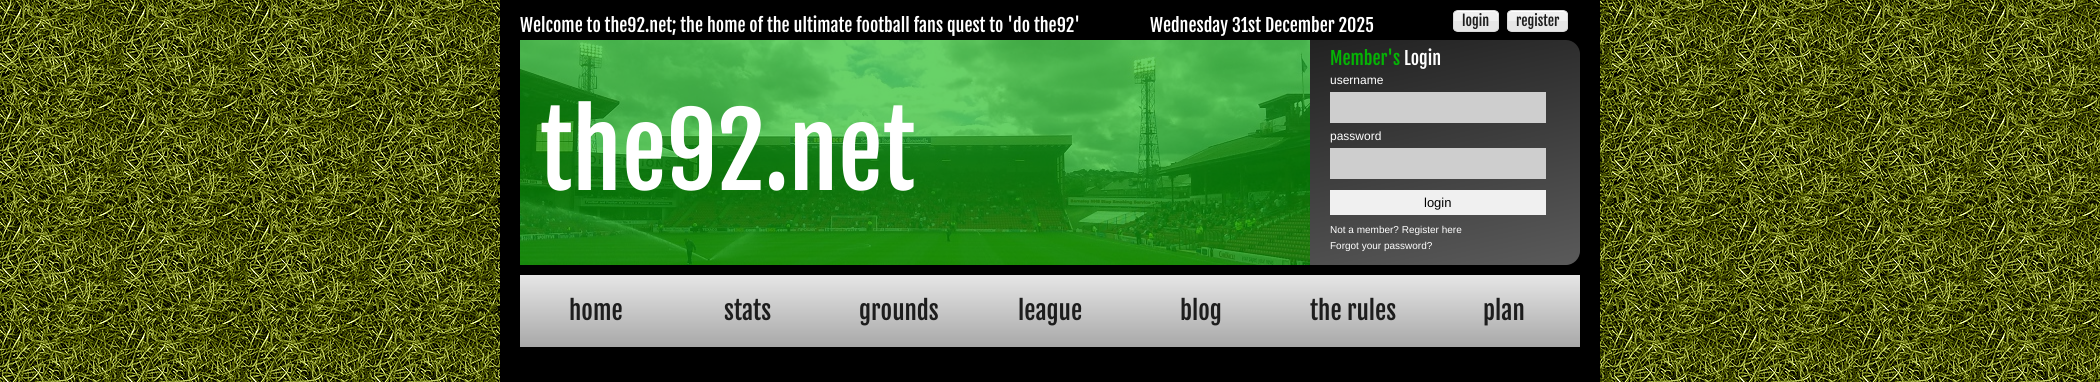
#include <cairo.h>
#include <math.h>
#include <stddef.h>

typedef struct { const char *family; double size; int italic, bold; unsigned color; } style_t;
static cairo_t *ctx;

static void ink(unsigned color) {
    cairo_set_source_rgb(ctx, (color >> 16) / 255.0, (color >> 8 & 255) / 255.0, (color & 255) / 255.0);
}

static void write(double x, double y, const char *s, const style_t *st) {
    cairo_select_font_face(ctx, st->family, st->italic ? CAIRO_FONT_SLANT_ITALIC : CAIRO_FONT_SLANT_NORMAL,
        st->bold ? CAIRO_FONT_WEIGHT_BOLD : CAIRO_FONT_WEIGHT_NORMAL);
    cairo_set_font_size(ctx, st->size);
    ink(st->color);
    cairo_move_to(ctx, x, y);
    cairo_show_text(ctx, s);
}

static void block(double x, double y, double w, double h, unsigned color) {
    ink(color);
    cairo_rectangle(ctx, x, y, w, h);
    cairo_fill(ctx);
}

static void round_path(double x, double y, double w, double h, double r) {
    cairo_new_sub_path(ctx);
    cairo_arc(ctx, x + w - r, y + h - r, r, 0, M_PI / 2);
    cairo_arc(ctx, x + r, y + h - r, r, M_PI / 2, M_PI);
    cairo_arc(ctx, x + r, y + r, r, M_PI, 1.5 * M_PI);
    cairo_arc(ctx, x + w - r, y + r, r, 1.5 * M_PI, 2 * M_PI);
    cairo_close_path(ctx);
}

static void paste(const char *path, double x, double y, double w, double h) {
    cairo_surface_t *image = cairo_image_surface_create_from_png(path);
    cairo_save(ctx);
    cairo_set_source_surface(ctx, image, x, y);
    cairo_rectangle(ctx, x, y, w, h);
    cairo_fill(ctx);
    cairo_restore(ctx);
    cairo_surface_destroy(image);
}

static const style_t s1 = {"Fjalla One", 18, 0, 0, 0xffffff};
static const style_t s2 = {"Fjalla One", 14, 0, 0, 0x1d1d1d};
static const style_t s3 = {"Fjalla One", 100, 0, 0, 0xffffff};
static const style_t s4 = {"Fjalla One", 18, 0, 0, 0x04b404};
static const style_t s5 = {"Liberation Sans", 12, 0, 0, 0xffffff};
static const style_t s6 = {"Liberation Sans", 13, 0, 0, 0x000000};
static const style_t s7 = {"Liberation Sans", 10, 0, 0, 0xffffff};
static const style_t s8 = {"Fjalla One", 25, 0, 0, 0x1d1d1d};

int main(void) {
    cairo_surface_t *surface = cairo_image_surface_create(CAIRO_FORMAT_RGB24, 2100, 382);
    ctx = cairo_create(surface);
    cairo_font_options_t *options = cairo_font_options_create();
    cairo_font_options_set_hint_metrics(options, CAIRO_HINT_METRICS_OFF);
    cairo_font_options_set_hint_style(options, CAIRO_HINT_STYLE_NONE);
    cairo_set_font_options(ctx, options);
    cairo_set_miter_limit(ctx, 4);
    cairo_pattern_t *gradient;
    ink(0xffffff);
    cairo_paint(ctx);
    paste("pic1.png", 0, 0, 2100, 382);
    block(500, 0, 1100, 382, 0x000000);
    write(520, 32, "Welcome to the92.net; the home of the ultimate football fans quest to 'do the92'", &s1);
    write(1150, 32, "Wednesday 31st December 2025", &s1);
    cairo_save(ctx);
    round_path(1453, 10, 46, 22, 5);
    cairo_clip(ctx);
    block(1453, 11, 46, 10, 0xf0f0f0);
    block(1453, 21, 46, 10, 0xe6e6e6);
    cairo_restore(ctx);
    cairo_new_path(ctx);
    cairo_move_to(ctx, 1458, 12);
    cairo_line_to(ctx, 1485, 12);
    cairo_curve_to(ctx, 1492, 12, 1497, 9, 1498, 18);
    cairo_line_to(ctx, 1498, 28);
    cairo_line_to(ctx, 1498, 14);
    cairo_curve_to(ctx, 1497, 10, 1491, 11, 1488, 11);
    cairo_line_to(ctx, 1464, 11);
    cairo_curve_to(ctx, 1458, 11, 1454, 10, 1454, 17);
    cairo_curve_to(ctx, 1454, 14, 1455, 12, 1458, 12);
    cairo_close_path(ctx);
    cairo_fill(ctx);
    round_path(1453.5, 10.5, 45, 21, 4.5);
    ink(0xd9d9d9);
    cairo_set_line_width(ctx, 1);
    cairo_stroke(ctx);
    write(1462, 26, "login", &s2);
    cairo_save(ctx);
    round_path(1507, 10, 61, 22, 5);
    cairo_clip(ctx);
    block(1507, 11, 61, 10, 0xf0f0f0);
    block(1507, 21, 61, 10, 0xe6e6e6);
    cairo_restore(ctx);
    ink(0xffffff);
    cairo_new_path(ctx);
    cairo_move_to(ctx, 1512, 12);
    cairo_line_to(ctx, 1563, 12);
    cairo_curve_to(ctx, 1565, 12, 1567, 14, 1567, 16);
    cairo_curve_to(ctx, 1567, 9, 1560, 11, 1554, 11);
    cairo_line_to(ctx, 1520, 11);
    cairo_curve_to(ctx, 1515, 11, 1508, 9, 1508, 16);
    cairo_curve_to(ctx, 1508, 14, 1510, 12, 1512, 12);
    cairo_close_path(ctx);
    cairo_fill(ctx);
    round_path(1507.5, 10.5, 60, 21, 4.5);
    ink(0xd9d9d9);
    cairo_stroke(ctx);
    write(1516, 26, "register", &s2);
    gradient = cairo_pattern_create_linear(1004, -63, 1096, 368);
    cairo_pattern_add_color_stop_rgba(gradient, 0, 0, 0, 0, 1);
    cairo_pattern_add_color_stop_rgba(gradient, 1, 0.353, 0.353, 0.353, 1);
    cairo_set_source(ctx, gradient);
    cairo_pattern_destroy(gradient);
    cairo_new_path(ctx);
    cairo_move_to(ctx, 520, 40);
    cairo_line_to(ctx, 1566, 40);
    cairo_curve_to(ctx, 1573.5, 40, 1580, 46.5, 1580, 54);
    cairo_line_to(ctx, 1580, 251);
    cairo_curve_to(ctx, 1580, 258.5, 1573.5, 265, 1566, 265);
    cairo_line_to(ctx, 520, 265);
    cairo_close_path(ctx);
    cairo_fill(ctx);
    paste("pic2.png", 520, 40, 790, 225);
    write(540, 190, "the92.net", &s3);
    write(1330, 65, "Member's", &s4);
    write(1404, 65, "Login", &s1);
    write(1330, 84, "username", &s5);
    block(1330, 92, 216, 31, 0xcecece);
    write(1330, 140, "password", &s5);
    block(1330, 148, 216, 31, 0xcecece);
    block(1330, 190, 216, 25, 0xf0f0f0);
    write(1424, 207, "login", &s6);
    write(1330, 233, "Not a member? Register here", &s7);
    write(1330, 249, "Forgot your password?", &s7);
    gradient = cairo_pattern_create_linear(1050, 275, 1050, 347);
    cairo_pattern_add_color_stop_rgba(gradient, 0, 0.902, 0.902, 0.902, 1);
    cairo_pattern_add_color_stop_rgba(gradient, 1, 0.659, 0.659, 0.659, 1);
    cairo_set_source(ctx, gradient);
    cairo_pattern_destroy(gradient);
    cairo_rectangle(ctx, 520, 275, 1060, 72);
    cairo_fill(ctx);
    write(569, 320, "home", &s8);
    write(724, 320, "stats", &s8);
    write(859, 320, "grounds", &s8);
    write(1018, 320, "league", &s8);
    write(1180, 320, "blog", &s8);
    write(1310, 320, "the rules", &s8);
    write(1483, 320, "plan", &s8);
    cairo_surface_write_to_png(surface, "screenshot.png");
    cairo_font_options_destroy(options);
    cairo_destroy(ctx);
    cairo_surface_destroy(surface);
    return 0;
}
